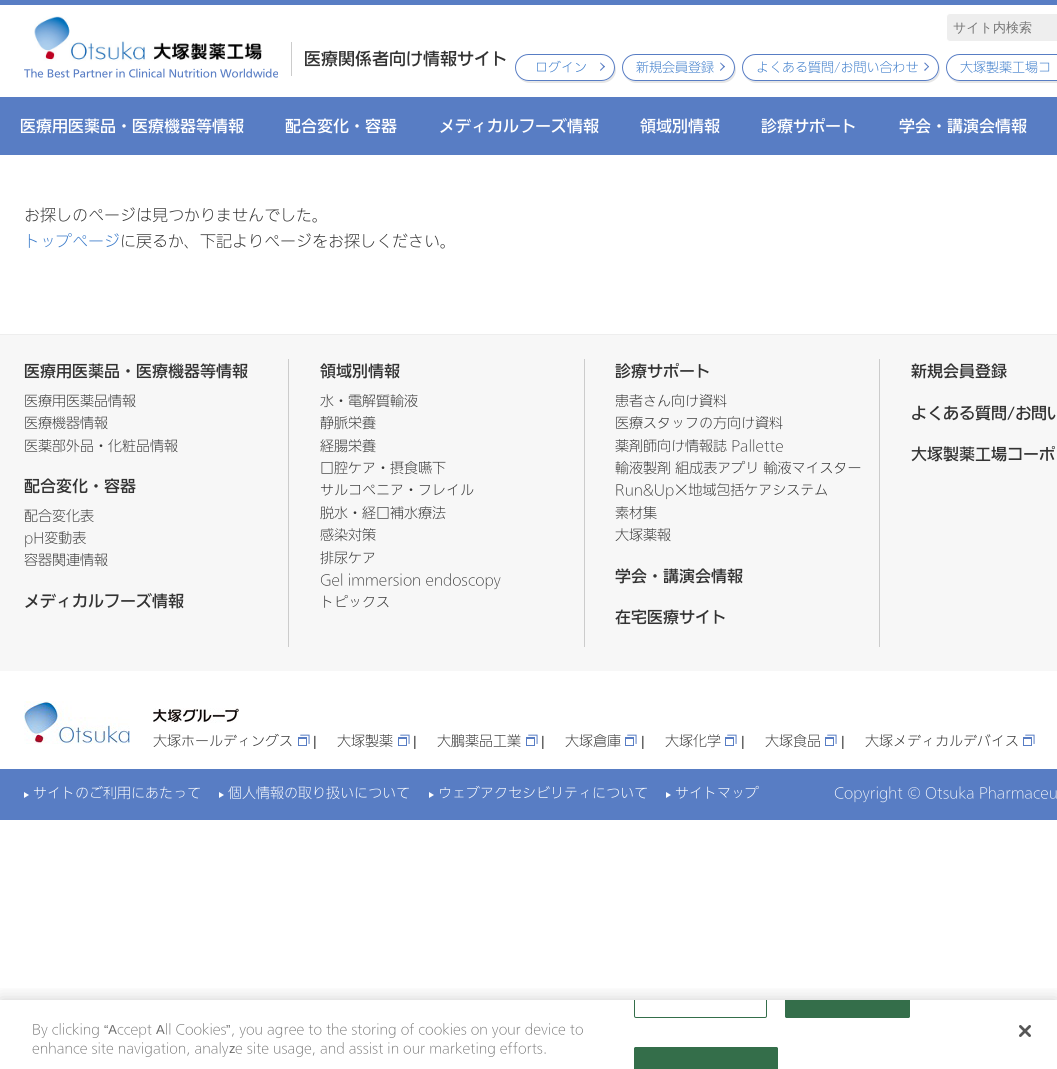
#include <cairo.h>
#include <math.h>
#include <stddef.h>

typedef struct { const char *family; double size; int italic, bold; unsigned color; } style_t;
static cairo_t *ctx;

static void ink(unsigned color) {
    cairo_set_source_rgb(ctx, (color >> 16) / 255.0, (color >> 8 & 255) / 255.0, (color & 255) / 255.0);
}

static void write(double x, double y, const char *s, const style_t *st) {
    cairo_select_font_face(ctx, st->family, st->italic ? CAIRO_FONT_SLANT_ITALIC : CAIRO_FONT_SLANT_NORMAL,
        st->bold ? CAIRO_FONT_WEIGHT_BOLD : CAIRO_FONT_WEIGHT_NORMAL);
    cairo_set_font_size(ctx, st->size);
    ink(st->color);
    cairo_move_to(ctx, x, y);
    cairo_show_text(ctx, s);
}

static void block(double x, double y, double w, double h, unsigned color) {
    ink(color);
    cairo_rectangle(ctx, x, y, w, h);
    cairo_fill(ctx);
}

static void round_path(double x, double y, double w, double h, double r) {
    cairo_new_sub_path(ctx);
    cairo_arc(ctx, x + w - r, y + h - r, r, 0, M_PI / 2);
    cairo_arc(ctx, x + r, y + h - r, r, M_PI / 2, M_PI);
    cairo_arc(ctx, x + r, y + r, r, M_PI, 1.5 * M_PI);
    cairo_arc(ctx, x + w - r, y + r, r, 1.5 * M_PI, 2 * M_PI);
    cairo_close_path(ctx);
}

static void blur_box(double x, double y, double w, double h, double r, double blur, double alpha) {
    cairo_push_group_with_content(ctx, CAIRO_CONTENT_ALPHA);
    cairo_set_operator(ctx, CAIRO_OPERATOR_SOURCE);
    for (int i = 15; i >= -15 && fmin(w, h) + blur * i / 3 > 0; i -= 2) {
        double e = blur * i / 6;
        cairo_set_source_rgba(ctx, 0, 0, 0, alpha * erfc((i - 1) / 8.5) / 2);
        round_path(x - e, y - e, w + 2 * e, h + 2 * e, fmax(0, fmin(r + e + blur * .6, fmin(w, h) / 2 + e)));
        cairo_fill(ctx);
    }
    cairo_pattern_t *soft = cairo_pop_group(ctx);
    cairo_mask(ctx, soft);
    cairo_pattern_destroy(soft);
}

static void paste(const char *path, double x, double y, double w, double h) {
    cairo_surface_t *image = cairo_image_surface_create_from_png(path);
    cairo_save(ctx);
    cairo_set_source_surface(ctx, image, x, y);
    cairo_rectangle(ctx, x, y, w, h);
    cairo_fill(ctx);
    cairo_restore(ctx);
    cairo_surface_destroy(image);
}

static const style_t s1 = {"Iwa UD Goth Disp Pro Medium", 17, 0, 0, 0x333333};
static const style_t s2 = {"Iwa UD Goth Disp Pro Medium", 10, 0, 0, 0x587dc4};
static const style_t s3 = {"WenQuanYi Zen Hei Medium", 13, 0, 0, 0x757575};
static const style_t s4 = {"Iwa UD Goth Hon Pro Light", 13, 0, 0, 0x3b7bca};
static const style_t s5 = {"Iwa UD Goth Disp Pro Medium", 16, 0, 0, 0xffffff};
static const style_t s6 = {"Iwa UD Goth Hon Pro Light", 16, 0, 0, 0x333333};
static const style_t s7 = {"Iwa UD Goth Hon Pro Light", 16, 0, 0, 0x3b7bca};
static const style_t s8 = {"Iwa UD Goth Disp Pro Medium", 16, 0, 0, 0x333333};
static const style_t s9 = {"Iwa UD Goth Hon Pro Light", 14, 0, 0, 0x333333};
static const style_t s10 = {"Liberation Sans", 14, 0, 0, 0x333333};
static const style_t s11 = {"Iwa UD Goth Hon Pro Light", 14, 0, 0, 0xffffff};
static const style_t s12 = {"Iwa UD Goth Hon Pro Light", 13, 0, 0, 0x696969};
static const style_t s13 = {"Liberation Sans", 13, 0, 0, 0x696969};

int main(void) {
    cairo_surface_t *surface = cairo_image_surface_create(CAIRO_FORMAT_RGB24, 1057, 1069);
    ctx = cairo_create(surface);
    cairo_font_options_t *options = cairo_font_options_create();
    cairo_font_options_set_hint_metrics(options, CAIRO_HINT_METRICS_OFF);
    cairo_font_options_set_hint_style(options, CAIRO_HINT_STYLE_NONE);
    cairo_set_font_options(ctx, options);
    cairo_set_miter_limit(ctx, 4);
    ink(0xffffff);
    cairo_paint(ctx);
    block(0, 0, 1057, 5, 0x587dc4);
    block(291, 42, 1, 34, 0xcccccc);
    write(304, 65, "医療関係者向け情報サイト", &s1);
    paste("pic1.png", 34, 16, 228, 45);
    write(24, 77, "The Best Partner in Clinical Nutrition Worldwide", &s2);
    ink(0xeeeeee);
    round_path(946.5, 13.5, 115, 28, 3.5);
    cairo_fill_preserve(ctx);
    ink(0xffffff);
    cairo_set_line_width(ctx, 1);
    cairo_stroke(ctx);
    write(953, 32, "サイト内検索", &s3);
    ink(0xe6e6e6);
    cairo_new_path(ctx);
    cairo_move_to(ctx, 517, 75);
    cairo_curve_to(ctx, 519, 79, 524, 83, 530, 83);
    cairo_line_to(ctx, 602, 83);
    cairo_curve_to(ctx, 610, 83, 616, 77, 616, 70);
    cairo_curve_to(ctx, 616, 67, 615, 65, 614, 62);
    cairo_curve_to(ctx, 617, 70, 612, 79, 604, 81);
    cairo_line_to(ctx, 541, 81);
    cairo_curve_to(ctx, 532, 81, 522, 83, 517, 75);
    cairo_close_path(ctx);
    cairo_fill(ctx);
    round_path(515.5, 54.5, 99, 26, 13);
    ink(0x587dc4);
    cairo_stroke(ctx);
    write(535, 72, "ログイン", &s4);
    ink(0x587dc4);
    cairo_new_path(ctx);
    cairo_move_to(ctx, 600.5, 62.5);
    cairo_line_to(ctx, 605, 66.5);
    cairo_line_to(ctx, 604, 67.5);
    cairo_line_to(ctx, 600, 63);
    cairo_close_path(ctx);
    cairo_fill(ctx);
    cairo_new_path(ctx);
    cairo_move_to(ctx, 604, 66);
    cairo_line_to(ctx, 605, 66.5);
    cairo_line_to(ctx, 600.5, 71);
    cairo_line_to(ctx, 600, 70);
    cairo_close_path(ctx);
    cairo_fill(ctx);
    ink(0xe6e6e6);
    cairo_new_path(ctx);
    cairo_move_to(ctx, 624, 75);
    cairo_curve_to(ctx, 626, 79, 631, 83, 636, 83);
    cairo_line_to(ctx, 722, 83);
    cairo_curve_to(ctx, 730, 83, 736, 77, 736, 70);
    cairo_curve_to(ctx, 736, 67, 735, 65, 734, 62);
    cairo_line_to(ctx, 735, 68);
    cairo_curve_to(ctx, 735, 75, 729, 81, 722, 81);
    cairo_line_to(ctx, 636, 81);
    cairo_curve_to(ctx, 631, 81, 626, 78, 624, 75);
    cairo_close_path(ctx);
    cairo_fill(ctx);
    round_path(622.5, 54.5, 112, 26, 13);
    ink(0x587dc4);
    cairo_stroke(ctx);
    write(636, 72, "新規会員登録", &s4);
    ink(0x587dc4);
    cairo_new_path(ctx);
    cairo_move_to(ctx, 720.5, 62.5);
    cairo_line_to(ctx, 725, 66.5);
    cairo_line_to(ctx, 724, 67.5);
    cairo_line_to(ctx, 720, 63);
    cairo_close_path(ctx);
    cairo_fill(ctx);
    cairo_new_path(ctx);
    cairo_move_to(ctx, 724, 66);
    cairo_line_to(ctx, 725, 66.5);
    cairo_line_to(ctx, 720.5, 71);
    cairo_line_to(ctx, 720, 70);
    cairo_close_path(ctx);
    cairo_fill(ctx);
    ink(0xe6e6e6);
    cairo_new_path(ctx);
    cairo_move_to(ctx, 744, 75);
    cairo_curve_to(ctx, 746, 79, 751, 83, 756, 83);
    cairo_line_to(ctx, 926, 83);
    cairo_curve_to(ctx, 934, 83, 940, 77, 940, 70);
    cairo_curve_to(ctx, 940, 67, 939, 65, 938, 62);
    cairo_line_to(ctx, 939, 68);
    cairo_curve_to(ctx, 939, 75, 933, 81, 926, 81);
    cairo_line_to(ctx, 756, 81);
    cairo_curve_to(ctx, 751, 81, 746, 78, 744, 75);
    cairo_close_path(ctx);
    cairo_fill(ctx);
    round_path(742.5, 54.5, 196, 26, 13);
    ink(0x587dc4);
    cairo_stroke(ctx);
    write(756, 72, "よくある質問/お問い合わせ", &s4);
    ink(0x587dc4);
    cairo_new_path(ctx);
    cairo_move_to(ctx, 925, 62.5);
    cairo_line_to(ctx, 929, 66.5);
    cairo_line_to(ctx, 928.5, 67.5);
    cairo_line_to(ctx, 924, 63);
    cairo_close_path(ctx);
    cairo_fill(ctx);
    cairo_new_path(ctx);
    cairo_move_to(ctx, 928.5, 66);
    cairo_line_to(ctx, 929, 66.5);
    cairo_line_to(ctx, 925, 71);
    cairo_line_to(ctx, 924, 70);
    cairo_close_path(ctx);
    cairo_fill(ctx);
    ink(0xe6e6e6);
    cairo_new_path(ctx);
    cairo_move_to(ctx, 948, 75);
    cairo_curve_to(ctx, 950, 79, 955, 83, 960, 83);
    cairo_line_to(ctx, 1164, 83);
    cairo_curve_to(ctx, 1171, 83, 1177, 77, 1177, 70);
    cairo_curve_to(ctx, 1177, 67, 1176, 65, 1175, 62);
    cairo_line_to(ctx, 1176, 68);
    cairo_curve_to(ctx, 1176, 75, 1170, 81, 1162, 81);
    cairo_line_to(ctx, 960, 81);
    cairo_curve_to(ctx, 955, 81, 950, 78, 948, 75);
    cairo_close_path(ctx);
    cairo_fill(ctx);
    round_path(946.5, 54.5, 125, 26, 13);
    ink(0x587dc4);
    cairo_stroke(ctx);
    write(960, 72, "大塚製薬工場コ", &s4);
    block(0, 97, 1057, 58, 0x587dc4);
    write(20, 132, "医療用医薬品・医療機器等情報", &s5);
    write(285, 132, "配合変化・容器", &s5);
    write(439, 132, "メディカルフーズ情報", &s5);
    write(640, 132, "領域別情報", &s5);
    write(761, 132, "診療サポート", &s5);
    write(899, 132, "学会・講演会情報", &s5);
    write(24, 221, "お探しのページは見つかりませんでした。", &s6);
    write(24, 247, "トップページ", &s7);
    write(120, 247, "に戻るか、下記よりページをお探しください。", &s6);
    block(0, 335, 1057, 336, 0xf7f7f7);
    block(0, 334, 1057, 1, 0xeeeeee);
    block(288, 359, 1, 288, 0xcccccc);
    write(24, 377, "医療用医薬品・医療機器等情報", &s8);
    write(24, 406, "医療用医薬品情報", &s9);
    write(24, 428, "医療機器情報", &s9);
    write(24, 451, "医薬部外品・化粧品情報", &s9);
    write(24, 492, "配合変化・容器", &s8);
    write(24, 521, "配合変化表", &s9);
    write(24, 543, "pH変動表", &s9);
    write(24, 565, "容器関連情報", &s9);
    write(24, 607, "メディカルフーズ情報", &s8);
    block(584, 359, 1, 288, 0xcccccc);
    write(320, 377, "領域別情報", &s8);
    write(320, 406, "水・電解質輸液", &s9);
    write(320, 428, "静脈栄養", &s9);
    write(320, 451, "経腸栄養", &s9);
    write(320, 473, "口腔ケア・摂食嚥下", &s9);
    write(320, 495, "サルコペニア・フレイル", &s9);
    write(320, 518, "脱水・経口補水療法", &s9);
    write(320, 540, "感染対策", &s9);
    write(320, 563, "排尿ケア", &s9);
    write(320, 585, "Gel immersion endoscopy", &s9);
    write(320, 607, "トピックス", &s9);
    block(879, 359, 1, 288, 0xcccccc);
    write(615, 377, "診療サポート", &s8);
    write(615, 406, "患者さん向け資料", &s9);
    write(615, 428, "医療スタッフの方向け資料", &s9);
    write(615, 451, "薬剤師向け情報誌 Pallette", &s9);
    write(615, 473, "輸液製剤 組成表アプリ 輸液マイスター", &s9);
    write(615, 495, "Run&Up×地域包括ケアシステム", &s9);
    write(615, 518, "素材集", &s9);
    write(615, 540, "大塚薬報", &s9);
    write(615, 582, "学会・講演会情報", &s8);
    write(615, 623, "在宅医療サイト", &s8);
    write(911, 377, "新規会員登録", &s8);
    write(911, 419, "よくある質問/お問い", &s8);
    write(911, 460, "大塚製薬工場コーポ", &s8);
    paste("pic2.png", 24, 701, 106, 43);
    paste("pic3.png", 153, 708, 86, 15);
    write(153, 746, "大塚ホールディングス", &s9);
    paste("pic4.png", 298, 734, 12, 12);
    write(313, 746, "|", &s10);
    write(337, 746, "大塚製薬", &s9);
    paste("pic4.png", 398, 734, 12, 12);
    write(413, 746, "|", &s10);
    write(437, 746, "大鵬薬品工業", &s9);
    paste("pic4.png", 526, 734, 12, 12);
    write(541, 746, "|", &s10);
    write(565, 746, "大塚倉庫", &s9);
    paste("pic4.png", 625, 734, 12, 12);
    write(641, 746, "|", &s10);
    write(665, 746, "大塚化学", &s9);
    paste("pic4.png", 725, 734, 12, 12);
    write(741, 746, "|", &s10);
    write(765, 746, "大塚食品", &s9);
    paste("pic4.png", 825, 734, 12, 12);
    write(841, 746, "|", &s10);
    write(865, 746, "大塚メディカルデバイス", &s9);
    paste("pic4.png", 1023, 734, 12, 12);
    block(0, 769, 1057, 51, 0x587dc4);
    ink(0xffffff);
    cairo_new_path(ctx);
    cairo_move_to(ctx, 24, 798);
    cairo_line_to(ctx, 24, 792);
    cairo_line_to(ctx, 29, 795);
    cairo_close_path(ctx);
    cairo_fill(ctx);
    write(33, 798, "サイトのご利用にあたって", &s11);
    cairo_new_path(ctx);
    cairo_move_to(ctx, 219, 798);
    cairo_line_to(ctx, 219, 792);
    cairo_line_to(ctx, 224, 795);
    cairo_close_path(ctx);
    cairo_fill(ctx);
    write(228, 798, "個人情報の取り扱いについて", &s11);
    cairo_new_path(ctx);
    cairo_move_to(ctx, 429, 798);
    cairo_line_to(ctx, 429, 792);
    cairo_line_to(ctx, 434, 795);
    cairo_close_path(ctx);
    cairo_fill(ctx);
    write(438, 798, "ウェブアクセシビリティについて", &s11);
    cairo_new_path(ctx);
    cairo_move_to(ctx, 666, 798);
    cairo_line_to(ctx, 666, 792);
    cairo_line_to(ctx, 671, 795);
    cairo_close_path(ctx);
    cairo_fill(ctx);
    write(675, 798, "サイトマップ", &s11);
    write(834, 798, "Copyright © Otsuka Pharmaceu", &s11);
    cairo_save(ctx);
    cairo_rectangle(ctx, 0, 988, 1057, 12);
    cairo_clip(ctx);
    ink(0x000000);
    blur_box(0, 1000, 1057, 69, 0, 9, 0.2);
    cairo_restore(ctx);
    write(32, 1034, "By clicking", &s12);
    write(104, 1034, "“A", &s13);
    write(117, 1034, "ccept", &s12);
    write(156, 1034, "A", &s13);
    write(165, 1034, "ll Cookies", &s12);
    write(226, 1034, "”", &s13);
    write(231, 1034, ", you agree to the storing of cookies on your device to", &s12);
    write(32, 1053, "enhance site navigation, analy", &s12);
    write(229, 1053, "z", &s13);
    write(235, 1053, "e site usage, and assist in our marketing efforts.", &s12);
    cairo_save(ctx);
    cairo_rectangle(ctx, 0, 1000, 1057, 69);
    cairo_clip(ctx);
    round_path(634.5, 976.5, 132, 41, 1.5);
    ink(0x346e4a);
    cairo_stroke(ctx);
    cairo_restore(ctx);
    ink(0x346e4a);
    cairo_new_path(ctx);
    cairo_move_to(ctx, 785, 1000);
    cairo_line_to(ctx, 910, 1000);
    cairo_line_to(ctx, 910, 1016);
    cairo_curve_to(ctx, 910, 1017, 909, 1018, 908, 1018);
    cairo_line_to(ctx, 787, 1018);
    cairo_curve_to(ctx, 786, 1018, 785, 1017, 785, 1016);
    cairo_close_path(ctx);
    cairo_fill(ctx);
    cairo_save(ctx);
    cairo_rectangle(ctx, 0, 1000, 1057, 69);
    cairo_clip(ctx);
    round_path(785.5, 976.5, 124, 41, 1.5);
    cairo_stroke(ctx);
    cairo_restore(ctx);
    cairo_new_path(ctx);
    cairo_move_to(ctx, 636, 1047);
    cairo_line_to(ctx, 776, 1047);
    cairo_curve_to(ctx, 777, 1047, 778, 1048, 778, 1049);
    cairo_line_to(ctx, 778, 1069);
    cairo_line_to(ctx, 634, 1069);
    cairo_line_to(ctx, 634, 1049);
    cairo_curve_to(ctx, 634, 1048, 635, 1047, 636, 1047);
    cairo_close_path(ctx);
    cairo_fill(ctx);
    round_path(634.5, 1047.5, 143, 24, 1.5);
    cairo_stroke(ctx);
    paste("pic5.png", 1019, 1025, 12, 12);
    cairo_surface_write_to_png(surface, "screenshot.png");
    cairo_font_options_destroy(options);
    cairo_destroy(ctx);
    cairo_surface_destroy(surface);
    return 0;
}
